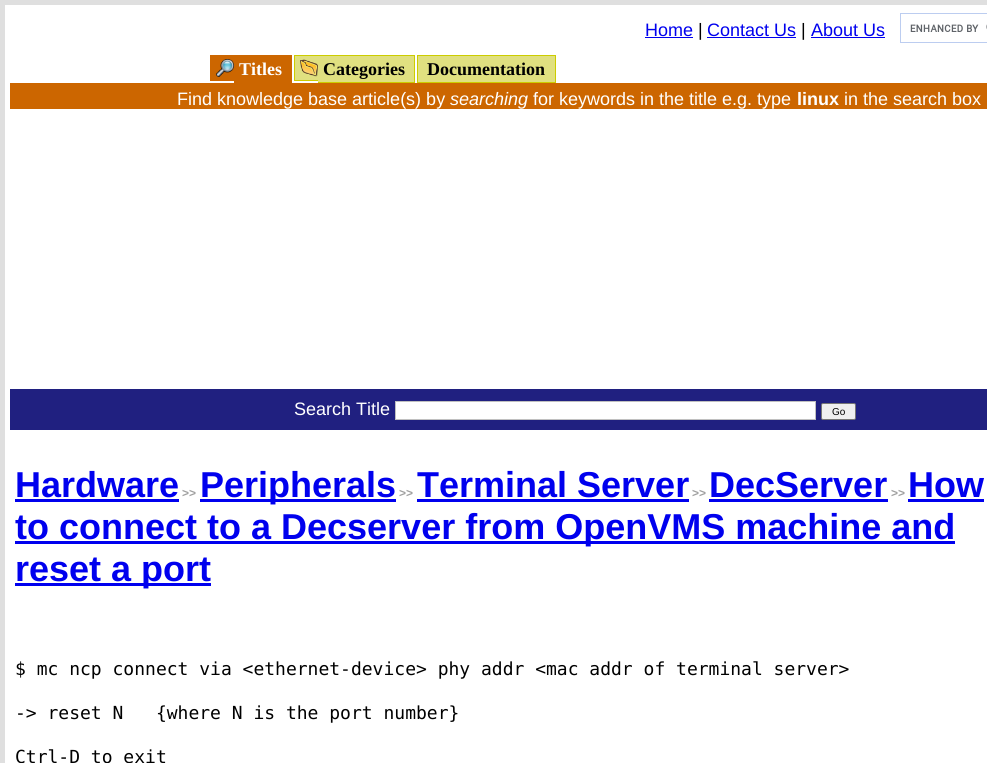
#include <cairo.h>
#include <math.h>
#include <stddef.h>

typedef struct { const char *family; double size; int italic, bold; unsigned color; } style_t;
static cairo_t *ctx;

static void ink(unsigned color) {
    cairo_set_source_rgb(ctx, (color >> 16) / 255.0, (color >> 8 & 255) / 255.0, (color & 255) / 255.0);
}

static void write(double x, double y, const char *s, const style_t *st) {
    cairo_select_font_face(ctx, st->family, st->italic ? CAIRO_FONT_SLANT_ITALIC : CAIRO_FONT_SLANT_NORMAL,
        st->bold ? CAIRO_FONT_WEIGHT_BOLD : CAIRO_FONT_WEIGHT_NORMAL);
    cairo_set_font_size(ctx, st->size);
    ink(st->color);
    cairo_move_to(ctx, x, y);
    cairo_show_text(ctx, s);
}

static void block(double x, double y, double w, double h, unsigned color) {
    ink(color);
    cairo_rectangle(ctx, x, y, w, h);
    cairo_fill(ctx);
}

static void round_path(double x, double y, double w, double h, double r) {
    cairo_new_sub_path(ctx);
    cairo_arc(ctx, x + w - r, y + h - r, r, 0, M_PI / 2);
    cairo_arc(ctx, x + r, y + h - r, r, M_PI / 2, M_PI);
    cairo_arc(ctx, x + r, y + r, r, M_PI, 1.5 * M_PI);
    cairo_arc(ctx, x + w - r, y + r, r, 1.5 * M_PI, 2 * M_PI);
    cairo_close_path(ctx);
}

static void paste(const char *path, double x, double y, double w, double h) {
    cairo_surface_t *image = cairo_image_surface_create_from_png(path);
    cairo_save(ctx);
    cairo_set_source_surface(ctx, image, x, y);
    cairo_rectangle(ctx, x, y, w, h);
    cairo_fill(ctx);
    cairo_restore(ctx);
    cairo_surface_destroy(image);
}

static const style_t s1 = {"Liberation Sans", 18, 0, 0, 0x0000ee};
static const style_t s2 = {"Liberation Sans", 18, 0, 0, 0x000000};
static const style_t s3 = {"Liberation Serif", 18, 0, 1, 0xffffff};
static const style_t s4 = {"Liberation Serif", 18, 0, 1, 0x000000};
static const style_t s5 = {"Liberation Sans", 18, 0, 0, 0xffffff};
static const style_t s6 = {"Liberation Sans", 18, 1, 0, 0xffffff};
static const style_t s7 = {"Liberation Sans", 18, 0, 1, 0xffffff};
static const style_t s8 = {"Liberation Sans", 10, 0, 0, 0x000000};
static const style_t s9 = {"Liberation Sans", 36, 0, 1, 0x0000ee};
static const style_t s10 = {"Liberation Sans", 12, 0, 1, 0xa0a0a0};
static const style_t s11 = {"DejaVu Sans Mono", 18, 0, 0, 0x000000};

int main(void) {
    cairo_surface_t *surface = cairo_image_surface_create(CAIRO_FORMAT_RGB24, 987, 763);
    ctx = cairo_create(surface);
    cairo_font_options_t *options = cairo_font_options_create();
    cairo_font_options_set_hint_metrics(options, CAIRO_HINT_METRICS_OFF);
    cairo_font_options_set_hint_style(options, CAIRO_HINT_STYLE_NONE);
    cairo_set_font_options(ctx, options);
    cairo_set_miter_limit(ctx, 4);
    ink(0xdfdfdf);
    cairo_paint(ctx);
    block(5, 5, 982, 758, 0xffffff);
    write(645, 36, "Home", &s1);
    block(645, 37, 48, 1, 0x0000ee);
    write(698, 36, "|", &s2);
    write(707, 36, "Contact Us", &s1);
    block(707, 37, 89, 1, 0x0000ee);
    write(801, 36, "|", &s2);
    write(811, 36, "About Us", &s1);
    block(811, 37, 74, 1, 0x0000ee);
    cairo_rectangle(ctx, 900.5, 13.5, 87, 29);
    ink(0xbccdf0);
    cairo_set_line_width(ctx, 1);
    cairo_stroke(ctx);
    paste("pic1.png", 910, 24, 77, 8);
    block(210, 55, 24, 26, 0xcc6600);
    paste("pic2.png", 216, 59, 18, 18);
    block(234, 55, 58, 28, 0xcc6600);
    write(239, 75, "Titles", &s3);
    block(295, 56, 23, 24, 0xe0e080);
    paste("pic3.png", 300, 59, 18, 18);
    block(318, 56, 96, 26, 0xe0e080);
    write(323, 75, "Categories", &s4);
    block(294, 55, 121, 1, 0xcccc00);
    block(294, 80, 24, 1, 0xcccc00);
    block(294, 55, 1, 26, 0xcccc00);
    block(414, 55, 1, 28, 0xcccc00);
    block(318, 82, 97, 1, 0xcccc00);
    ink(0xe0e080);
    cairo_rectangle(ctx, 417.5, 55.5, 138, 27);
    cairo_fill_preserve(ctx);
    ink(0xcccc00);
    cairo_stroke(ctx);
    write(427, 75, "Documentation", &s4);
    block(10, 83, 977, 26, 0xcc6600);
    write(177, 105, "Find knowledge base article(s) by", &s5);
    write(450, 105, "searching", &s6);
    write(533, 105, "for keywords in the title e.g. type", &s5);
    write(797, 105, "linux", &s7);
    write(844, 105, "in the search box", &s5);
    block(10, 389, 977, 41, 0x202080);
    write(294, 415, "Search Title", &s5);
    cairo_rectangle(ctx, 395.5, 401.5, 420, 18);
    cairo_fill_preserve(ctx);
    ink(0xc0c0c0);
    cairo_stroke(ctx);
    ink(0xefefef);
    round_path(821.5, 403.5, 34, 16, 1.5);
    cairo_fill_preserve(ctx);
    ink(0x767676);
    cairo_stroke(ctx);
    write(832, 415, "Go", &s8);
    write(15, 497, "Hardware", &s9);
    block(15, 499, 164, 3, 0x0000ee);
    write(182, 497, ">>", &s10);
    block(200, 499, 196, 3, 0x0000ee);
    write(200, 497, "Peripherals", &s9);
    write(399, 497, ">>", &s10);
    write(417, 497, "Terminal Server", &s9);
    block(417, 499, 272, 3, 0x0000ee);
    write(692, 497, ">>", &s10);
    write(709, 497, "DecServer", &s9);
    block(709, 499, 179, 3, 0x0000ee);
    write(891, 497, ">>", &s10);
    write(908, 497, "How", &s9);
    block(908, 499, 76, 3, 0x0000ee);
    block(15, 541, 940, 3, 0x0000ee);
    write(15, 539, "to connect to a Decserver from OpenVMS machine and", &s9);
    block(15, 583, 196, 3, 0x0000ee);
    write(15, 581, "reset a port", &s9);
    write(15, 675, "$ mc ncp connect via <ethernet-device> phy addr <mac addr of terminal server>", &s11);
    write(15, 719, "-> reset N   {where N is the port number}", &s11);
    write(15, 763, "Ctrl-D to exit", &s11);
    cairo_surface_write_to_png(surface, "screenshot.png");
    cairo_font_options_destroy(options);
    cairo_destroy(ctx);
    cairo_surface_destroy(surface);
    return 0;
}
